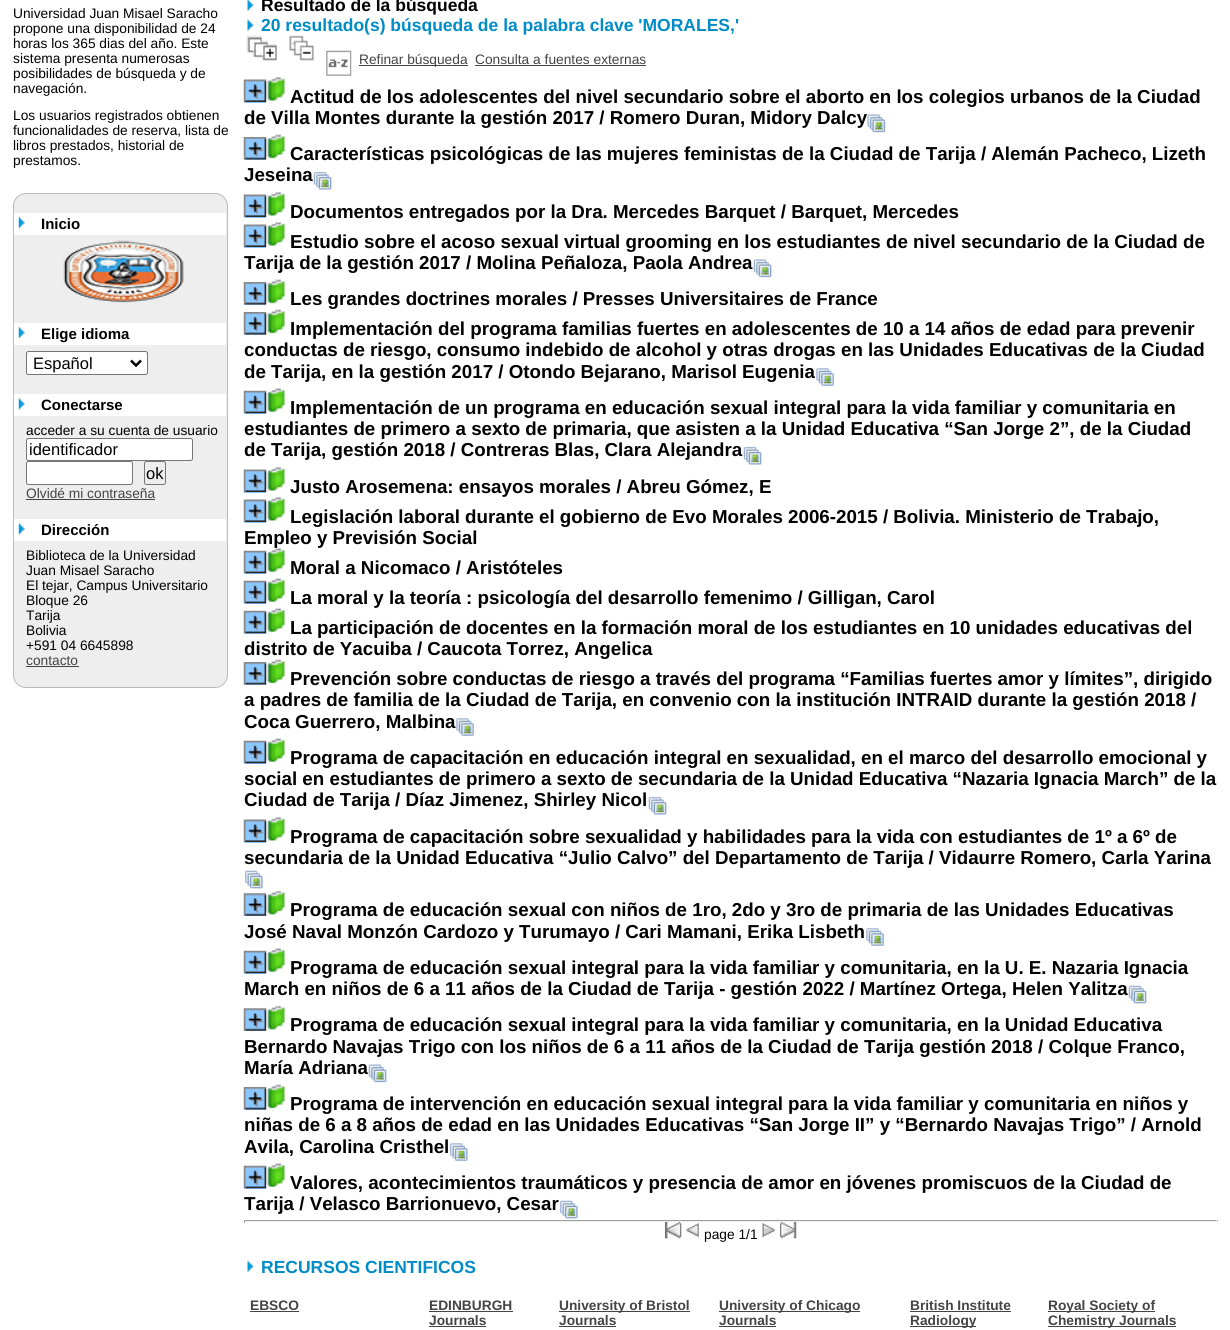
#include <cairo.h>
#include <math.h>
#include <stddef.h>

typedef struct { const char *family; double size; int italic, bold; unsigned color; } style_t;
static cairo_t *ctx;

static void ink(unsigned color) {
    cairo_set_source_rgb(ctx, (color >> 16) / 255.0, (color >> 8 & 255) / 255.0, (color & 255) / 255.0);
}

static void write(double x, double y, const char *s, const style_t *st) {
    cairo_select_font_face(ctx, st->family, st->italic ? CAIRO_FONT_SLANT_ITALIC : CAIRO_FONT_SLANT_NORMAL,
        st->bold ? CAIRO_FONT_WEIGHT_BOLD : CAIRO_FONT_WEIGHT_NORMAL);
    cairo_set_font_size(ctx, st->size);
    ink(st->color);
    cairo_move_to(ctx, x, y);
    cairo_show_text(ctx, s);
}

static void block(double x, double y, double w, double h, unsigned color) {
    ink(color);
    cairo_rectangle(ctx, x, y, w, h);
    cairo_fill(ctx);
}

static void round_path(double x, double y, double w, double h, double r) {
    cairo_new_sub_path(ctx);
    cairo_arc(ctx, x + w - r, y + h - r, r, 0, M_PI / 2);
    cairo_arc(ctx, x + r, y + h - r, r, M_PI / 2, M_PI);
    cairo_arc(ctx, x + r, y + r, r, M_PI, 1.5 * M_PI);
    cairo_arc(ctx, x + w - r, y + r, r, 1.5 * M_PI, 2 * M_PI);
    cairo_close_path(ctx);
}

static void paste(const char *path, double x, double y, double w, double h) {
    cairo_surface_t *image = cairo_image_surface_create_from_png(path);
    cairo_save(ctx);
    cairo_set_source_surface(ctx, image, x, y);
    cairo_rectangle(ctx, x, y, w, h);
    cairo_fill(ctx);
    cairo_restore(ctx);
    cairo_surface_destroy(image);
}

static const style_t s1 = {"Liberation Sans", 13.75, 0, 0, 0x000000};
static const style_t s2 = {"Liberation Sans", 17.5, 0, 1, 0x000000};
static const style_t s3 = {"Liberation Sans", 17.5, 0, 1, 0x008cc6};
static const style_t s4 = {"Liberation Sans", 13.75, 0, 0, 0x444444};
static const style_t s5 = {"Liberation Sans", 18.75, 0, 1, 0x000000};
static const style_t s6 = {"Liberation Sans", 13.75, 0, 1, 0x444444};
static const style_t s7 = {"Liberation Sans", 15, 0, 1, 0x000000};
static const style_t s8 = {"Liberation Sans", 16.5, 0, 0, 0x000000};

int main(void) {
    cairo_surface_t *surface = cairo_image_surface_create(CAIRO_FORMAT_RGB24, 1230, 1330);
    ctx = cairo_create(surface);
    cairo_font_options_t *options = cairo_font_options_create();
    cairo_font_options_set_hint_metrics(options, CAIRO_HINT_METRICS_OFF);
    cairo_font_options_set_hint_style(options, CAIRO_HINT_STYLE_NONE);
    cairo_set_font_options(ctx, options);
    cairo_set_miter_limit(ctx, 4);
    ink(0xffffff);
    cairo_paint(ctx);
    write(13, 18, "Universidad Juan Misael Saracho", &s1);
    write(13, 33, "propone una disponibilidad de 24", &s1);
    write(13, 48, "horas los 365 dias del año. Este", &s1);
    write(13, 63, "sistema presenta numerosas", &s1);
    write(13, 78, "posibilidades de búsqueda y de", &s1);
    write(13, 93, "navegación.", &s1);
    write(13, 120, "Los usuarios registrados obtienen", &s1);
    write(13, 135, "funcionalidades de reserva, lista de", &s1);
    write(13, 150, "libros prestados, historial de", &s1);
    write(13, 165, "prestamos.", &s1);
    paste("pic1.png", 247, 0, 7, 11);
    write(261, 11, "Resultado de la búsqueda", &s2);
    paste("pic2.png", 247, 19, 7, 12);
    write(261, 31, "20 resultado(s) búsqueda de la palabra clave 'MORALES,'", &s3);
    paste("pic3.png", 246, 35, 31, 26);
    paste("pic4.png", 289, 35, 25, 26);
    paste("pic5.png", 326, 50, 26, 26);
    block(359, 65, 109, 1, 0x444444);
    write(359, 64, "Refinar búsqueda", &s4);
    write(475, 64, "Consulta a fuentes externas", &s4);
    block(475, 65, 171, 1, 0x444444);
    block(244, 80, 22, 23, 0x8cc6ff);
    paste("pic6.png", 243, 79, 24, 23);
    paste("pic7.png", 266, 77, 19, 24);
    write(290, 103, "Actitud de los adolescentes del nivel secundario sobre el aborto en los colegios urbanos de la Ciudad", &s5);
    write(244, 124, "de Villa Montes durante la gestión 2017 / Romero Duran, Midory Dalcy", &s5);
    paste("pic8.png", 867, 114, 19, 19);
    block(244, 138, 22, 22, 0x8cc6ff);
    paste("pic9.png", 243, 137, 24, 23);
    paste("pic10.png", 266, 134, 19, 25);
    write(290, 160, "Características psicológicas de las mujeres feministas de la Ciudad de Tarija / Alemán Pacheco, Lizeth", &s5);
    write(244, 181, "Jeseina", &s5);
    paste("pic11.png", 313, 171, 19, 19);
    block(244, 195, 22, 23, 0x8cc6ff);
    paste("pic6.png", 243, 194, 24, 23);
    paste("pic7.png", 266, 192, 19, 24);
    write(290, 218, "Documentos entregados por la Dra. Mercedes Barquet / Barquet, Mercedes", &s5);
    block(244, 225, 22, 23, 0x8cc6ff);
    paste("pic6.png", 243, 224, 24, 23);
    paste("pic7.png", 266, 222, 19, 24);
    write(290, 248, "Estudio sobre el acoso sexual virtual grooming en los estudiantes de nivel secundario de la Ciudad de", &s5);
    write(244, 269, "Tarija de la gestión 2017 / Molina Peñaloza, Paola Andrea", &s5);
    paste("pic12.png", 753, 259, 19, 19);
    block(244, 283, 22, 22, 0x8cc6ff);
    paste("pic9.png", 243, 282, 24, 23);
    paste("pic10.png", 266, 279, 19, 25);
    write(290, 305, "Les grandes doctrines morales / Presses Universitaires de France", &s5);
    block(244, 313, 22, 22, 0x8cc6ff);
    paste("pic9.png", 243, 312, 24, 23);
    paste("pic10.png", 266, 309, 19, 25);
    write(290, 335, "Implementación del programa familias fuertes en adolescentes de 10 a 14 años de edad para prevenir", &s5);
    write(244, 356, "conductas de riesgo, consumo indebido de alcohol y otras drogas en las Unidades Educativas de la Ciudad", &s5);
    write(244, 378, "de Tarija, en la gestión 2017 / Otondo Bejarano, Marisol Eugenia", &s5);
    paste("pic13.png", 816, 368, 18, 18);
    block(244, 392, 22, 22, 0x8cc6ff);
    paste("pic14.png", 243, 390, 24, 24);
    paste("pic15.png", 266, 388, 19, 24);
    write(290, 414, "Implementación de un programa en educación sexual integral para la vida familiar y comunitaria en", &s5);
    write(244, 435, "estudiantes de primero a sexto de primaria, que asisten a la Unidad Educativa “San Jorge 2”, de la Ciudad", &s5);
    write(244, 456, "de Tarija, gestión 2018 / Contreras Blas, Clara Alejandra", &s5);
    paste("pic11.png", 743, 446, 19, 19);
    block(244, 470, 22, 23, 0x8cc6ff);
    paste("pic6.png", 243, 469, 24, 23);
    paste("pic7.png", 266, 467, 19, 24);
    write(290, 493, "Justo Arosemena: ensayos morales / Abreu Gómez, E", &s5);
    block(244, 500, 22, 23, 0x8cc6ff);
    paste("pic6.png", 243, 499, 24, 23);
    paste("pic7.png", 266, 497, 19, 24);
    write(290, 523, "Legislación laboral durante el gobierno de Evo Morales 2006-2015 / Bolivia. Ministerio de Trabajo,", &s5);
    write(244, 544, "Empleo y Previsión Social", &s5);
    block(244, 552, 22, 22, 0x8cc6ff);
    paste("pic14.png", 243, 550, 24, 24);
    paste("pic15.png", 266, 548, 19, 24);
    write(290, 574, "Moral a Nicomaco / Aristóteles", &s5);
    block(244, 582, 22, 22, 0x8cc6ff);
    paste("pic14.png", 243, 580, 24, 24);
    paste("pic15.png", 266, 578, 19, 24);
    write(290, 604, "La moral y la teoría : psicología del desarrollo femenimo / Gilligan, Carol", &s5);
    block(244, 612, 22, 22, 0x8cc6ff);
    paste("pic14.png", 243, 610, 24, 24);
    paste("pic15.png", 266, 608, 19, 24);
    write(290, 634, "La participación de docentes en la formación moral de los estudiantes en 10 unidades educativas del", &s5);
    write(244, 655, "distrito de Yacuiba / Caucota Torrez, Angelica", &s5);
    block(244, 663, 22, 22, 0x8cc6ff);
    paste("pic9.png", 243, 662, 24, 23);
    paste("pic10.png", 266, 659, 19, 25);
    write(290, 685, "Prevención sobre conductas de riesgo a través del programa “Familias fuertes amor y límites”, dirigido", &s5);
    write(244, 706, "a padres de familia de la Ciudad de Tarija, en convenio con la institución INTRAID durante la gestión 2018 /", &s5);
    write(244, 728, "Coca Guerrero, Malbina", &s5);
    paste("pic13.png", 456, 718, 18, 18);
    block(244, 742, 22, 22, 0x8cc6ff);
    paste("pic14.png", 243, 740, 24, 24);
    paste("pic15.png", 266, 738, 19, 24);
    write(290, 764, "Programa de capacitación en educación integral en sexualidad, en el marco del desarrollo emocional y", &s5);
    write(244, 785, "social en estudiantes de primero a sexto de secundaria de la Unidad Educativa “Nazaria Ignacia March” de la", &s5);
    write(244, 806, "Ciudad de Tarija / Díaz Jimenez, Shirley Nicol", &s5);
    paste("pic11.png", 648, 796, 19, 19);
    block(244, 820, 22, 23, 0x8cc6ff);
    paste("pic6.png", 243, 819, 24, 23);
    paste("pic7.png", 266, 817, 19, 24);
    write(290, 843, "Programa de capacitación sobre sexualidad y habilidades para la vida con estudiantes de 1º a 6º de", &s5);
    write(244, 864, "secundaria de la Unidad Educativa “Julio Calvo” del Departamento de Tarija / Vidaurre Romero, Carla Yarina", &s5);
    paste("pic16.png", 244, 870, 19, 19);
    block(244, 894, 22, 22, 0x8cc6ff);
    paste("pic17.png", 243, 893, 24, 23);
    paste("pic18.png", 266, 890, 19, 25);
    write(290, 916, "Programa de educación sexual con niños de 1ro, 2do y 3ro de primaria de las Unidades Educativas", &s5);
    write(244, 938, "José Naval Monzón Cardozo y Turumayo / Cari Mamani, Erika Lisbeth", &s5);
    paste("pic19.png", 866, 928, 18, 18);
    block(244, 952, 22, 22, 0x8cc6ff);
    paste("pic14.png", 243, 950, 24, 24);
    paste("pic15.png", 266, 948, 19, 24);
    write(290, 974, "Programa de educación sexual integral para la vida familiar y comunitaria, en la U. E. Nazaria Ignacia", &s5);
    write(244, 995, "March en niños de 6 a 11 años de la Ciudad de Tarija - gestión 2022 / Martínez Ortega, Helen Yalitza", &s5);
    paste("pic20.png", 1128, 985, 19, 19);
    block(244, 1009, 22, 22, 0x8cc6ff);
    paste("pic17.png", 243, 1008, 24, 23);
    paste("pic18.png", 266, 1005, 19, 25);
    write(290, 1031, "Programa de educación sexual integral para la vida familiar y comunitaria, en la Unidad Educativa", &s5);
    write(244, 1053, "Bernardo Navajas Trigo con los niños de 6 a 11 años de la Ciudad de Tarija gestión 2018 / Colque Franco,", &s5);
    write(244, 1074, "María Adriana", &s5);
    paste("pic21.png", 368, 1064, 19, 19);
    block(244, 1088, 22, 22, 0x8cc6ff);
    paste("pic9.png", 243, 1087, 24, 23);
    paste("pic10.png", 266, 1084, 19, 25);
    write(290, 1110, "Programa de intervención en educación sexual integral para la vida familiar y comunitaria en niños y", &s5);
    write(244, 1131, "niñas de 6 a 8 años de edad en las Unidades Educativas “San Jorge II” y “Bernardo Navajas Trigo” / Arnold", &s5);
    write(244, 1153, "Avila, Carolina Cristhel", &s5);
    paste("pic22.png", 449, 1143, 19, 18);
    block(244, 1167, 22, 22, 0x8cc6ff);
    paste("pic14.png", 243, 1165, 24, 24);
    paste("pic15.png", 266, 1163, 19, 24);
    write(290, 1189, "Valores, acontecimientos traumáticos y presencia de amor en jóvenes promiscuos de la Ciudad de", &s5);
    write(244, 1210, "Tarija / Velasco Barrionuevo, Cesar", &s5);
    paste("pic23.png", 559, 1200, 19, 19);
    block(244, 1220, 974, 1, 0x9f9f9f);
    block(1216, 1220, 1, 3, 0xeeeeee);
    block(244, 1221, 974, 1, 0xeeeeee);
    block(244, 1220, 1, 3, 0x9f9f9f);
    paste("pic24.png", 665, 1222, 17, 17);
    paste("pic25.png", 686, 1223, 13, 15);
    write(704, 1239, "page 1/1", &s1);
    paste("pic26.png", 762, 1223, 14, 15);
    paste("pic27.png", 780, 1222, 17, 17);
    paste("pic28.png", 247, 1260, 7, 12);
    write(261, 1273, "RECURSOS CIENTIFICOS", &s3);
    write(250, 1310, "EBSCO", &s6);
    block(250, 1311, 49, 1, 0x444444);
    write(429, 1310, "EDINBURGH", &s6);
    block(429, 1311, 84, 1, 0x444444);
    write(429, 1325, "Journals", &s6);
    block(429, 1326, 57, 1, 0x444444);
    block(559, 1311, 131, 1, 0x444444);
    write(559, 1310, "University of Bristol", &s6);
    write(559, 1325, "Journals", &s6);
    block(559, 1326, 57, 1, 0x444444);
    block(719, 1311, 141, 1, 0x444444);
    write(719, 1310, "University of Chicago", &s6);
    write(719, 1325, "Journals", &s6);
    block(719, 1326, 57, 1, 0x444444);
    write(910, 1310, "British Institute", &s6);
    block(910, 1311, 101, 1, 0x444444);
    block(910, 1326, 66, 1, 0x444444);
    write(910, 1325, "Radiology", &s6);
    block(1048, 1311, 107, 1, 0x444444);
    write(1048, 1310, "Royal Society of", &s6);
    block(1048, 1326, 128, 1, 0x444444);
    write(1048, 1325, "Chemistry Journals", &s6);
    ink(0xeeeeee);
    round_path(13.5, 193.5, 214, 494, 12.5);
    cairo_fill_preserve(ctx);
    ink(0xbbbbbb);
    cairo_set_line_width(ctx, 1);
    cairo_stroke(ctx);
    block(14, 213, 212, 22, 0xffffff);
    paste("pic29.png", 18, 217, 7, 12);
    write(41, 229, "Inicio", &s7);
    paste("pic30.png", 63, 240, 121, 63);
    block(14, 323, 212, 22, 0xffffff);
    paste("pic29.png", 18, 327, 7, 12);
    write(41, 339, "Elige idioma", &s7);
    ink(0xffffff);
    round_path(26.5, 351.5, 121, 23, 2);
    cairo_fill_preserve(ctx);
    ink(0x767676);
    cairo_stroke(ctx);
    cairo_new_path(ctx);
    cairo_move_to(ctx, 131, 360.5);
    cairo_line_to(ctx, 136, 365.5);
    cairo_line_to(ctx, 141, 360.5);
    ink(0x000000);
    cairo_set_line_width(ctx, 2.5);
    cairo_stroke(ctx);
    write(33, 369, "Español", &s8);
    block(14, 394, 212, 22, 0xffffff);
    paste("pic31.png", 18, 398, 7, 12);
    write(41, 410, "Conectarse", &s7);
    write(26, 435, "acceder a su cuenta de usuario", &s1);
    ink(0xffffff);
    round_path(26.5, 438.5, 166, 22, 2);
    cairo_fill_preserve(ctx);
    ink(0x767676);
    cairo_set_line_width(ctx, 1);
    cairo_stroke(ctx);
    write(29, 455, "identificador", &s8);
    ink(0xffffff);
    round_path(26.5, 461.5, 106, 23, 2);
    cairo_fill_preserve(ctx);
    ink(0x767676);
    cairo_stroke(ctx);
    round_path(144.5, 461.5, 21, 23, 2);
    cairo_stroke(ctx);
    write(146, 479, "ok", &s8);
    write(26, 498, "Olvidé mi contraseña", &s4);
    block(26, 499, 129, 1, 0x444444);
    block(14, 519, 212, 22, 0xffffff);
    paste("pic31.png", 18, 523, 7, 12);
    write(41, 535, "Dirección", &s7);
    write(26, 560, "Biblioteca de la Universidad", &s1);
    write(26, 575, "Juan Misael Saracho", &s1);
    write(26, 590, "El tejar, Campus Universitario", &s1);
    write(26, 605, "Bloque 26", &s1);
    write(26, 620, "Tarija", &s1);
    write(26, 635, "Bolivia", &s1);
    write(26, 650, "+591 04 6645898", &s1);
    write(26, 665, "contacto", &s4);
    block(26, 666, 53, 1, 0x444444);
    cairo_surface_write_to_png(surface, "screenshot.png");
    cairo_font_options_destroy(options);
    cairo_destroy(ctx);
    cairo_surface_destroy(surface);
    return 0;
}
